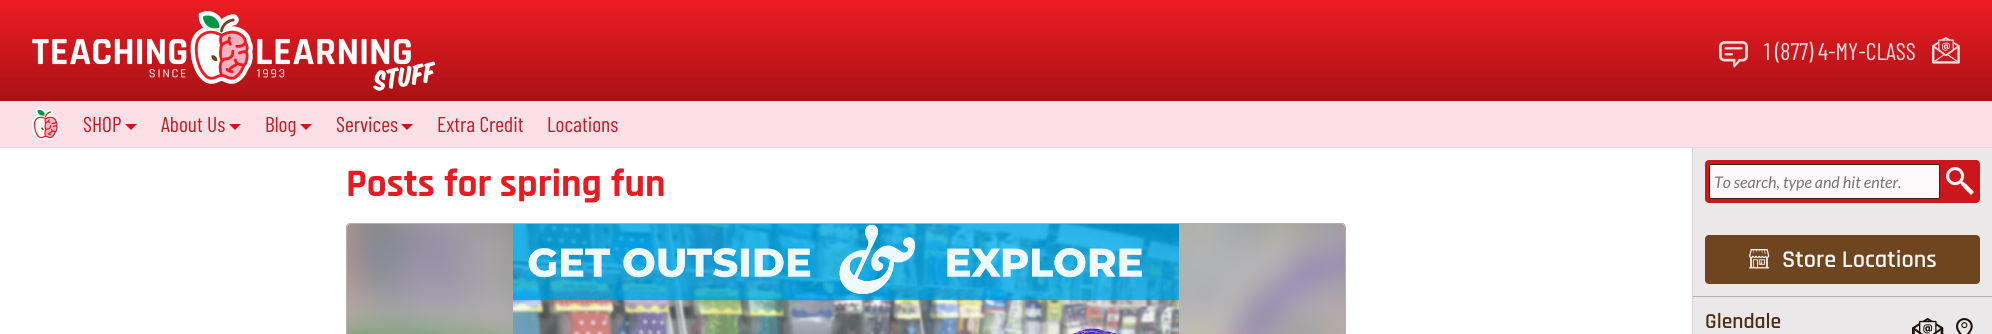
#include <cairo.h>
#include <math.h>
#include <stddef.h>

typedef struct { const char *family; double size; int italic, bold; unsigned color; } style_t;
static cairo_t *ctx;

static void ink(unsigned color) {
    cairo_set_source_rgb(ctx, (color >> 16) / 255.0, (color >> 8 & 255) / 255.0, (color & 255) / 255.0);
}

static void write(double x, double y, const char *s, const style_t *st) {
    cairo_select_font_face(ctx, st->family, st->italic ? CAIRO_FONT_SLANT_ITALIC : CAIRO_FONT_SLANT_NORMAL,
        st->bold ? CAIRO_FONT_WEIGHT_BOLD : CAIRO_FONT_WEIGHT_NORMAL);
    cairo_set_font_size(ctx, st->size);
    ink(st->color);
    cairo_move_to(ctx, x, y);
    cairo_show_text(ctx, s);
}

static void block(double x, double y, double w, double h, unsigned color) {
    ink(color);
    cairo_rectangle(ctx, x, y, w, h);
    cairo_fill(ctx);
}

static void round_path(double x, double y, double w, double h, double r) {
    cairo_new_sub_path(ctx);
    cairo_arc(ctx, x + w - r, y + h - r, r, 0, M_PI / 2);
    cairo_arc(ctx, x + r, y + h - r, r, M_PI / 2, M_PI);
    cairo_arc(ctx, x + r, y + r, r, M_PI, 1.5 * M_PI);
    cairo_arc(ctx, x + w - r, y + r, r, 1.5 * M_PI, 2 * M_PI);
    cairo_close_path(ctx);
}

static void paste(const char *path, double x, double y, double w, double h) {
    cairo_surface_t *image = cairo_image_surface_create_from_png(path);
    cairo_save(ctx);
    cairo_set_source_surface(ctx, image, x, y);
    cairo_rectangle(ctx, x, y, w, h);
    cairo_fill(ctx);
    cairo_restore(ctx);
    cairo_surface_destroy(image);
}

static const style_t s1 = {"Barlow Condensed", 24, 0, 0, 0xfcddde};
static const style_t s2 = {"Barlow Condensed", 21.5, 0, 0, 0xcb171c};
static const style_t s3 = {"Rajdhani", 39.25, 0, 1, 0xe81b23};
static const style_t s4 = {"Lato", 16, 1, 0, 0x757575};
static const style_t s5 = {"Rajdhani SemiBold", 24.25, 0, 0, 0xfef5f7};
static const style_t s6 = {"Rajdhani SemiBold", 21.5, 0, 0, 0x4c2e13};

int main(void) {
    cairo_surface_t *surface = cairo_image_surface_create(CAIRO_FORMAT_RGB24, 1992, 334);
    ctx = cairo_create(surface);
    cairo_font_options_t *options = cairo_font_options_create();
    cairo_font_options_set_hint_metrics(options, CAIRO_HINT_METRICS_OFF);
    cairo_font_options_set_hint_style(options, CAIRO_HINT_STYLE_NONE);
    cairo_set_font_options(ctx, options);
    cairo_set_miter_limit(ctx, 4);
    cairo_pattern_t *gradient;
    ink(0xffffff);
    cairo_paint(ctx);
    block(0, 147, 1992, 1, 0xfad1da);
    gradient = cairo_pattern_create_linear(996, 0, 996, 101);
    cairo_pattern_add_color_stop_rgba(gradient, 0, 0.929, 0.11, 0.141, 1);
    cairo_pattern_add_color_stop_rgba(gradient, 1, 0.663, 0.071, 0.078, 1);
    cairo_set_source(ctx, gradient);
    cairo_pattern_destroy(gradient);
    cairo_rectangle(ctx, 0, 0, 1992, 101);
    cairo_fill(ctx);
    paste("pic1.png", 32, 11, 403, 80);
    paste("pic2.png", 1719, 41, 29, 27);
    write(1764, 60, "1 (877) 4-MY-CLASS", &s1);
    paste("pic3.png", 1932, 37, 28, 27);
    block(0, 101, 1992, 46, 0xfce0e7);
    paste("pic4.png", 32, 108, 28, 32);
    write(83, 132, "SHOP", &s2);
    cairo_new_path(ctx);
    cairo_move_to(ctx, 125, 124);
    cairo_line_to(ctx, 137, 124);
    cairo_line_to(ctx, 131, 130);
    cairo_close_path(ctx);
    cairo_fill(ctx);
    write(161, 132, "About Us", &s2);
    cairo_new_path(ctx);
    cairo_move_to(ctx, 229, 124);
    cairo_line_to(ctx, 241, 124);
    cairo_line_to(ctx, 235, 130);
    cairo_close_path(ctx);
    cairo_fill(ctx);
    write(265, 132, "Blog", &s2);
    cairo_new_path(ctx);
    cairo_move_to(ctx, 300, 124);
    cairo_line_to(ctx, 312, 124);
    cairo_line_to(ctx, 306, 130);
    cairo_close_path(ctx);
    cairo_fill(ctx);
    write(336, 132, "Services", &s2);
    cairo_new_path(ctx);
    cairo_move_to(ctx, 401, 124);
    cairo_line_to(ctx, 413, 124);
    cairo_line_to(ctx, 407, 130);
    cairo_close_path(ctx);
    cairo_fill(ctx);
    write(437, 132, "Extra Credit", &s2);
    write(547, 132, "Locations", &s2);
    write(346, 196, "Posts for spring fun", &s3);
    ink(0xf1f0f0);
    round_path(346.5, 223.5, 999, 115, 3.5);
    cairo_fill_preserve(ctx);
    ink(0xb2aead);
    cairo_set_line_width(ctx, 1);
    cairo_stroke(ctx);
    ink(0xa29c9c);
    cairo_new_path(ctx);
    cairo_move_to(ctx, 351, 224);
    cairo_line_to(ctx, 1341, 224);
    cairo_curve_to(ctx, 1343, 224, 1345, 226, 1345, 228);
    cairo_line_to(ctx, 1345, 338);
    cairo_line_to(ctx, 347, 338);
    cairo_line_to(ctx, 347, 228);
    cairo_curve_to(ctx, 347, 226, 349, 224, 351, 224);
    cairo_close_path(ctx);
    cairo_fill(ctx);
    paste("pic5.png", 347, 224, 998, 110);
    paste("pic6.png", 513, 224, 666, 110);
    block(1693, 148, 299, 186, 0xeae8e9);
    block(1692, 148, 1, 186, 0xd7d3d3);
    ink(0xcb171c);
    round_path(1705, 160, 275, 43, 4);
    cairo_fill(ctx);
    ink(0xfef9fa);
    round_path(1709.5, 164.5, 230, 34, 1.5);
    cairo_fill_preserve(ctx);
    ink(0x3a230f);
    cairo_stroke(ctx);
    write(1714, 188, "To search, type and hit enter.", &s4);
    paste("pic7.png", 1946, 167, 28, 28);
    gradient = cairo_pattern_create_linear(1832, 10, 1886, 317);
    cairo_pattern_add_color_stop_rgba(gradient, 0, 0.365, 0.22, 0.094, 1);
    cairo_pattern_add_color_stop_rgba(gradient, 0.33, 0.365, 0.22, 0.094, 1);
    cairo_pattern_add_color_stop_rgba(gradient, 0.67, 0.431, 0.271, 0.118, 1);
    cairo_pattern_add_color_stop_rgba(gradient, 1, 0.431, 0.271, 0.118, 1);
    cairo_set_source(ctx, gradient);
    cairo_pattern_destroy(gradient);
    round_path(1705, 235, 275, 49, 4);
    cairo_fill(ctx);
    paste("pic8.png", 1749, 249, 21, 20);
    write(1782, 267, "Store Locations", &s5);
    block(1693, 296, 299, 1, 0xb2aead);
    write(1705, 328, "Glendale", &s6);
    paste("pic9.png", 1912, 318, 32, 16);
    paste("pic10.png", 1956, 318, 17, 16);
    cairo_surface_write_to_png(surface, "screenshot.png");
    cairo_font_options_destroy(options);
    cairo_destroy(ctx);
    cairo_surface_destroy(surface);
    return 0;
}
